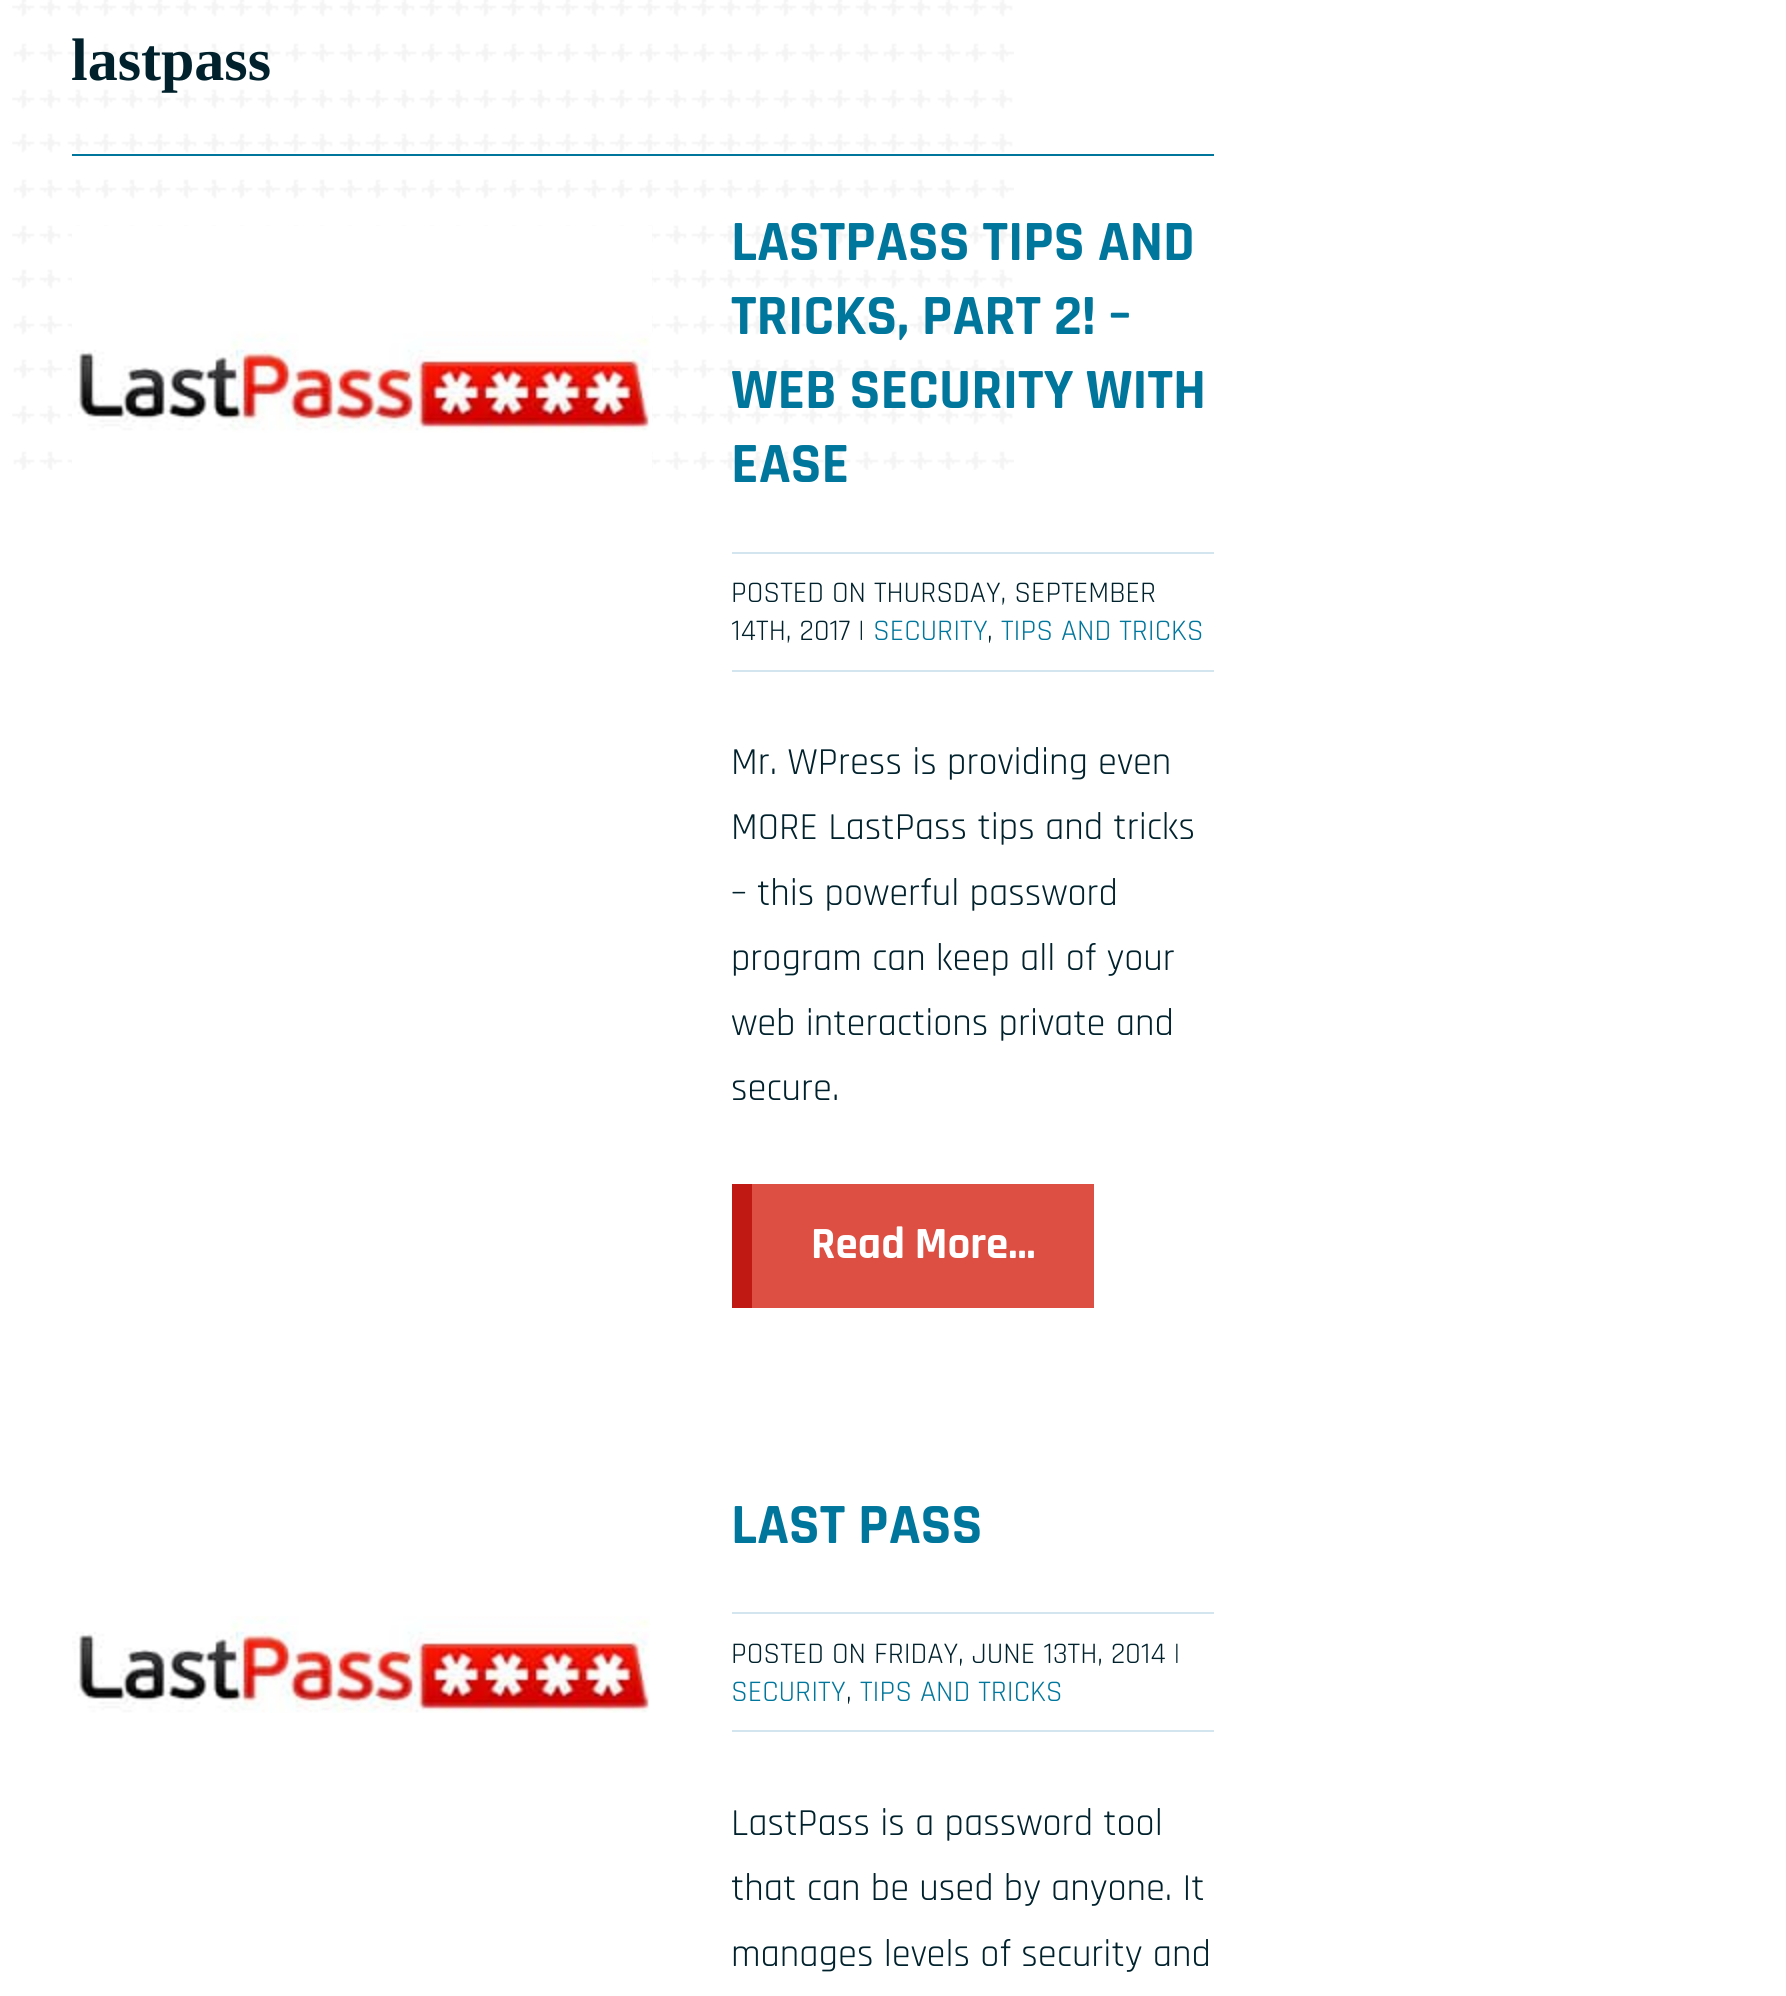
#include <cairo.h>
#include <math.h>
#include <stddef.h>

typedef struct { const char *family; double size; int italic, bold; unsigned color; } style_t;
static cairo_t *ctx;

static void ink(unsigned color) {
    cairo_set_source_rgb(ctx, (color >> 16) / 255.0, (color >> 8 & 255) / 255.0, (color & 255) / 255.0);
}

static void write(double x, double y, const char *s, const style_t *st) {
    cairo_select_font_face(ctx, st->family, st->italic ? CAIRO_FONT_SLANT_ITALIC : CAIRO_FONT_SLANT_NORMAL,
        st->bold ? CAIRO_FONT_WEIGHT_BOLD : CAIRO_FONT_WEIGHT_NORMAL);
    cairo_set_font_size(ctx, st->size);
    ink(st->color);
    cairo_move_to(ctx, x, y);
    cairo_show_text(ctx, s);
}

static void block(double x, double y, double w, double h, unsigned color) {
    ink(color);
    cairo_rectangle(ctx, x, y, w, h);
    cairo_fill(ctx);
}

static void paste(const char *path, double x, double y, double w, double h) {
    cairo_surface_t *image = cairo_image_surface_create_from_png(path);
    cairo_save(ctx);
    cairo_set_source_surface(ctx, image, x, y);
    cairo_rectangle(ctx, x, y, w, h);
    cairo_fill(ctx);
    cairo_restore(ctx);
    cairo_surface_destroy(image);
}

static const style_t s1 = {"Liberation Serif", 60, 0, 1, 0x01222d};
static const style_t s2 = {"Rajdhani", 57.5, 0, 1, 0x00769c};
static const style_t s3 = {"Rajdhani", 30, 0, 0, 0x01222d};
static const style_t s4 = {"Rajdhani", 30, 0, 0, 0x00769c};
static const style_t s5 = {"Rajdhani", 38.4, 0, 0, 0x01222d};
static const style_t s6 = {"Rajdhani", 45, 0, 1, 0xffffff};

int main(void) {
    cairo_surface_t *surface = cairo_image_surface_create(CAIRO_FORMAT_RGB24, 1786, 1996);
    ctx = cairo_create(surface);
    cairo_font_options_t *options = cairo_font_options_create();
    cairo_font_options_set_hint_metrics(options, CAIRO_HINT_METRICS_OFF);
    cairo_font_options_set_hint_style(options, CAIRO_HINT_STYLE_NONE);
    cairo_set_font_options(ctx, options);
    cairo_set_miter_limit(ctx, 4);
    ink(0xffffff);
    cairo_paint(ctx);
    paste("pic1.png", 12, 0, 1002, 470);
    block(72, 154, 1142, 2, 0x00769c);
    write(71, 80, "lastpass", &s1);
    paste("pic2.png", 72, 226, 580, 244);
    write(731, 260, "LASTPASS TIPS AND", &s2);
    write(731, 334, "TRICKS, PART 2! –", &s2);
    write(731, 408, "WEB SECURITY WITH", &s2);
    write(731, 482, "EASE", &s2);
    block(732, 552, 482, 2, 0xd3e6f0);
    block(732, 670, 482, 2, 0xd3e6f0);
    write(731, 602, "POSTED ON THURSDAY, SEPTEMBER", &s3);
    write(731, 640, "14TH, 2017 |", &s3);
    write(873, 640, "SECURITY", &s4);
    write(987, 640, ",", &s3);
    write(1001, 640, "TIPS AND TRICKS", &s4);
    write(731, 774, "Mr. WPress is providing even", &s5);
    write(731, 839, "MORE LastPass tips and tricks", &s5);
    write(731, 905, "– this powerful password", &s5);
    write(731, 970, "program can keep all of your", &s5);
    write(731, 1035, "web interactions private and", &s5);
    write(731, 1100, "secure.", &s5);
    block(752, 1184, 342, 124, 0xdd4f43);
    block(732, 1184, 20, 124, 0xc01812);
    write(811, 1258, "Read More…", &s6);
    write(731, 1543, "LAST PASS", &s2);
    paste("pic3.png", 72, 1616, 578, 97);
    block(732, 1612, 482, 2, 0xd3e6f0);
    block(732, 1730, 482, 2, 0xd3e6f0);
    write(731, 1663, "POSTED ON FRIDAY, JUNE 13TH, 2014 |", &s3);
    write(731, 1701, "SECURITY", &s4);
    write(846, 1701, ",", &s3);
    write(860, 1701, "TIPS AND TRICKS", &s4);
    write(731, 1835, "LastPass is a password tool", &s5);
    write(731, 1900, "that can be used by anyone. It", &s5);
    write(731, 1966, "manages levels of security and", &s5);
    cairo_surface_write_to_png(surface, "screenshot.png");
    cairo_font_options_destroy(options);
    cairo_destroy(ctx);
    cairo_surface_destroy(surface);
    return 0;
}
